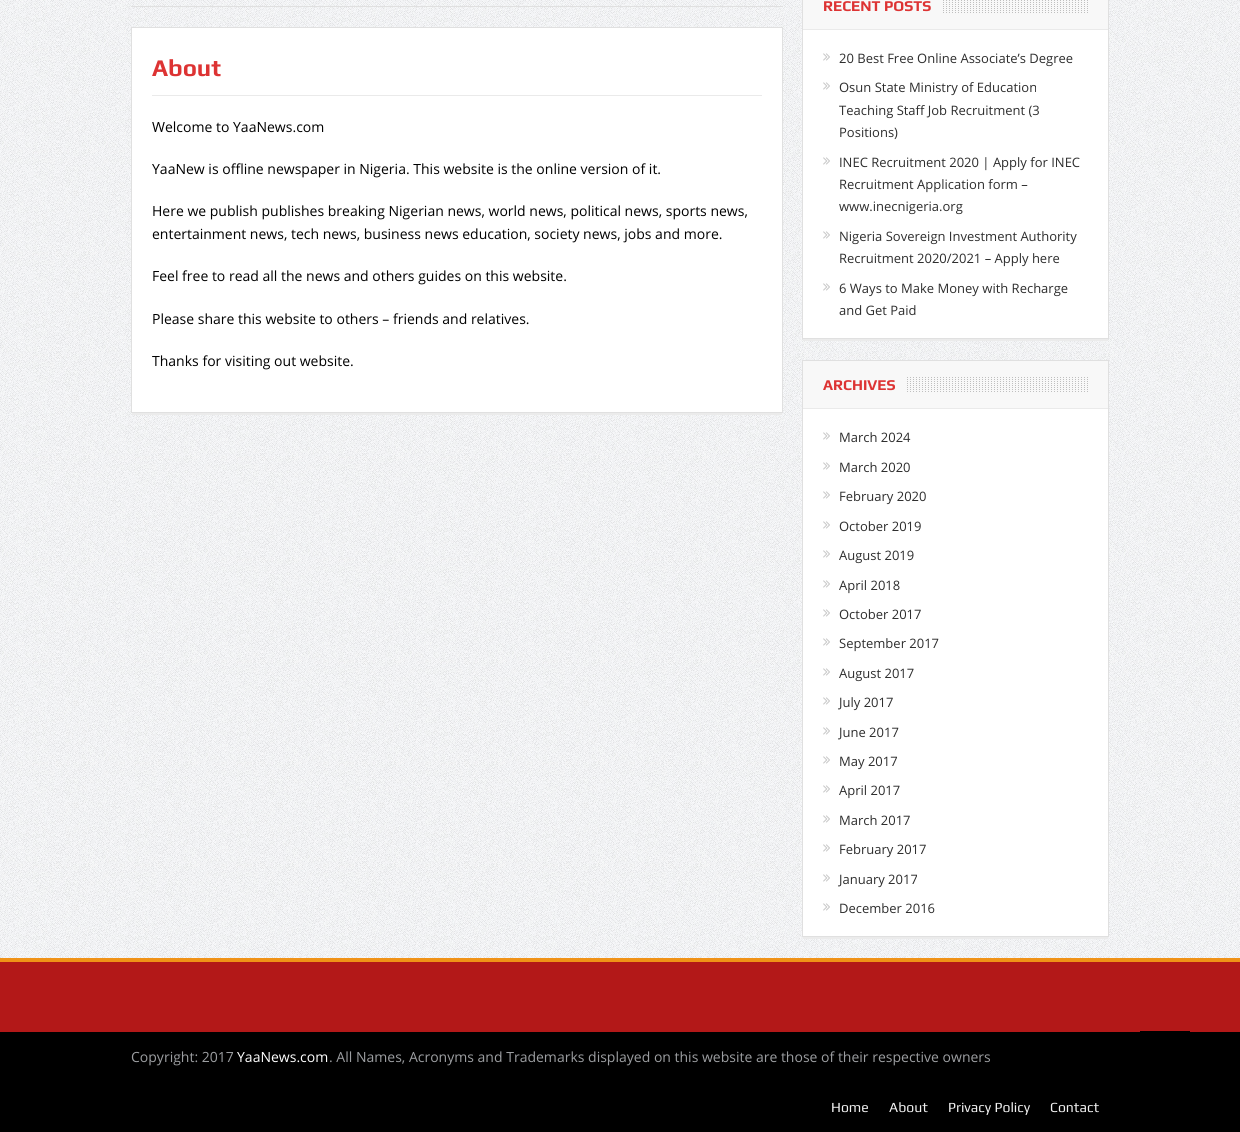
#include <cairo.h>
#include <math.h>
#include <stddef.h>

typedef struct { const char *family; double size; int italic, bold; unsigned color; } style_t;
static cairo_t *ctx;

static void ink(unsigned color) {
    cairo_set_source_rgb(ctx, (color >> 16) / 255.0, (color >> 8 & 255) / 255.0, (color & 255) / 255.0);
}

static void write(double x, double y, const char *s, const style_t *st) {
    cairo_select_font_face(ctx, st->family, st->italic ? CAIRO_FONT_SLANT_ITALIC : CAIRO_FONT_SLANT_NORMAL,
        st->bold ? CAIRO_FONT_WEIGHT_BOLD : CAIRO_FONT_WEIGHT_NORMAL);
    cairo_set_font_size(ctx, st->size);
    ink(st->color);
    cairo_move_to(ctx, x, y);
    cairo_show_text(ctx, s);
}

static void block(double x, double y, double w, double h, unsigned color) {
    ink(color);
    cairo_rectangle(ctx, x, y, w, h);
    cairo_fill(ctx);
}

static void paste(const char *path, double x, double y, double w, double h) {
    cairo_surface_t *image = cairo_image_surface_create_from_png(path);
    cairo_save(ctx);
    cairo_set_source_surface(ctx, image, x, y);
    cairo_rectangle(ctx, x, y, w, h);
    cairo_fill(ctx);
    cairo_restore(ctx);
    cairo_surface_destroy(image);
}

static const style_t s1 = {"Play", 24, 0, 1, 0xdd3333};
static const style_t s2 = {"Open Sans", 14, 0, 0, 0x000000};
static const style_t s3 = {"Play", 15, 0, 1, 0xdd3333};
static const style_t s4 = {"Open Sans", 13, 0, 0, 0x2d2d2d};
static const style_t s5 = {"Open Sans", 14, 0, 0, 0x9c9ea1};
static const style_t s6 = {"Open Sans", 14, 0, 0, 0xffffff};
static const style_t s7 = {"Play", 14, 0, 0, 0xf0f0f0};

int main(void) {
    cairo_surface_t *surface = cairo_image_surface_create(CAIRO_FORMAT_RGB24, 1240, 1132);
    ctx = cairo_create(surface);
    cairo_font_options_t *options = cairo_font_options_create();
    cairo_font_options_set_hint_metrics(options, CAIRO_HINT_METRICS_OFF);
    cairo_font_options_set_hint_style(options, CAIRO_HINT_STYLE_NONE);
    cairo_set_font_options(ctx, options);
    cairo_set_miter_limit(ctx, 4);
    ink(0xffffff);
    cairo_paint(ctx);
    paste("pic1.png", 0, 0, 1240, 958);
    block(131, 6, 652, 1, 0xe0e0e0);
    ink(0xffffff);
    cairo_rectangle(ctx, 131.5, 27.5, 651, 385);
    cairo_fill_preserve(ctx);
    ink(0xe0e0e0);
    cairo_set_line_width(ctx, 1);
    cairo_stroke(ctx);
    block(152, 95, 610, 1, 0xeaeaea);
    write(152, 76, "About", &s1);
    write(152, 132, "Welcome to YaaNews.com", &s2);
    write(152, 174, "YaaNew is offline newspaper in Nigeria. This website is the online version of it.", &s2);
    write(152, 216, "Here we publish publishes breaking Nigerian news, world news, political news, sports news,", &s2);
    write(152, 239, "entertainment news, tech news, business news education, society news, jobs and more.", &s2);
    write(152, 281, "Feel free to read all the news and others guides on this website.", &s2);
    write(152, 324, "Please share this website to others – friends and relatives.", &s2);
    write(152, 366, "Thanks for visiting out website.", &s2);
    block(132, 413, 650, 2, 0xebebeb);
    block(803, 30, 305, 308, 0xffffff);
    cairo_rectangle(ctx, 802.5, -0.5, 306, 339);
    ink(0xe0e0e0);
    cairo_stroke(ctx);
    block(803, 0, 305, 29, 0xf8f8f8);
    block(803, 29, 305, 1, 0xeaeaea);
    paste("pic2.png", 943, 0, 145, 13);
    write(823, 11, "RECENT POSTS", &s3);
    paste("pic3.png", 823, 53, 7, 8);
    write(839, 63, "20 Best Free Online Associate’s Degree", &s4);
    paste("pic3.png", 823, 82, 7, 8);
    write(839, 92, "Osun State Ministry of Education", &s4);
    write(839, 115, "Teaching Staff Job Recruitment (3", &s4);
    write(839, 137, "Positions)", &s4);
    paste("pic3.png", 823, 157, 7, 8);
    write(839, 167, "INEC Recruitment 2020 | Apply for INEC", &s4);
    write(839, 189, "Recruitment Application form –", &s4);
    write(839, 211, "www.inecnigeria.org", &s4);
    paste("pic3.png", 823, 231, 7, 8);
    write(839, 241, "Nigeria Sovereign Investment Authority", &s4);
    write(839, 263, "Recruitment 2020/2021 – Apply here", &s4);
    paste("pic3.png", 823, 283, 7, 8);
    write(839, 293, "6 Ways to Make Money with Recharge", &s4);
    write(839, 315, "and Get Paid", &s4);
    block(803, 339, 305, 2, 0xebebeb);
    block(803, 409, 305, 527, 0xffffff);
    cairo_rectangle(ctx, 802.5, 360.5, 306, 576);
    ink(0xe0e0e0);
    cairo_stroke(ctx);
    block(803, 361, 305, 47, 0xf8f8f8);
    block(803, 408, 305, 1, 0xeaeaea);
    paste("pic4.png", 907, 377, 181, 15);
    write(823, 390, "ARCHIVES", &s3);
    paste("pic3.png", 823, 432, 7, 8);
    write(839, 442, "March 2024", &s4);
    paste("pic3.png", 823, 462, 7, 8);
    write(839, 472, "March 2020", &s4);
    paste("pic3.png", 823, 491, 7, 8);
    write(839, 501, "February 2020", &s4);
    paste("pic3.png", 823, 521, 7, 8);
    write(839, 531, "October 2019", &s4);
    paste("pic3.png", 823, 550, 7, 8);
    write(839, 560, "August 2019", &s4);
    paste("pic3.png", 823, 580, 7, 8);
    write(839, 590, "April 2018", &s4);
    paste("pic3.png", 823, 609, 7, 8);
    write(839, 619, "October 2017", &s4);
    paste("pic3.png", 823, 638, 7, 8);
    write(839, 648, "September 2017", &s4);
    paste("pic3.png", 823, 668, 7, 8);
    write(839, 678, "August 2017", &s4);
    paste("pic3.png", 823, 697, 7, 8);
    write(839, 707, "July 2017", &s4);
    paste("pic3.png", 823, 727, 7, 8);
    write(839, 737, "June 2017", &s4);
    paste("pic3.png", 823, 756, 7, 8);
    write(839, 766, "May 2017", &s4);
    paste("pic3.png", 823, 785, 7, 8);
    write(839, 795, "April 2017", &s4);
    paste("pic3.png", 823, 815, 7, 8);
    write(839, 825, "March 2017", &s4);
    paste("pic3.png", 823, 844, 7, 8);
    write(839, 854, "February 2017", &s4);
    paste("pic3.png", 823, 874, 7, 8);
    write(839, 884, "January 2017", &s4);
    paste("pic3.png", 823, 903, 7, 8);
    write(839, 913, "December 2016", &s4);
    block(803, 937, 305, 2, 0xebebeb);
    block(0, 962, 1240, 70, 0xb31818);
    block(0, 958, 1240, 4, 0xf09217);
    block(0, 1032, 1240, 100, 0x000000);
    write(131, 1062, "Copyright: 2017", &s5);
    write(237, 1062, "YaaNews.com", &s6);
    write(329, 1062, ". All Names, Acronyms and Trademarks displayed on this website are those of their respective owners", &s5);
    write(831, 1112, "Home", &s7);
    write(889, 1112, "About", &s7);
    write(948, 1112, "Privacy Policy", &s7);
    write(1050, 1112, "Contact", &s7);
    block(1140, 1031, 50, 1, 0x000000);
    cairo_surface_write_to_png(surface, "screenshot.png");
    cairo_font_options_destroy(options);
    cairo_destroy(ctx);
    cairo_surface_destroy(surface);
    return 0;
}
